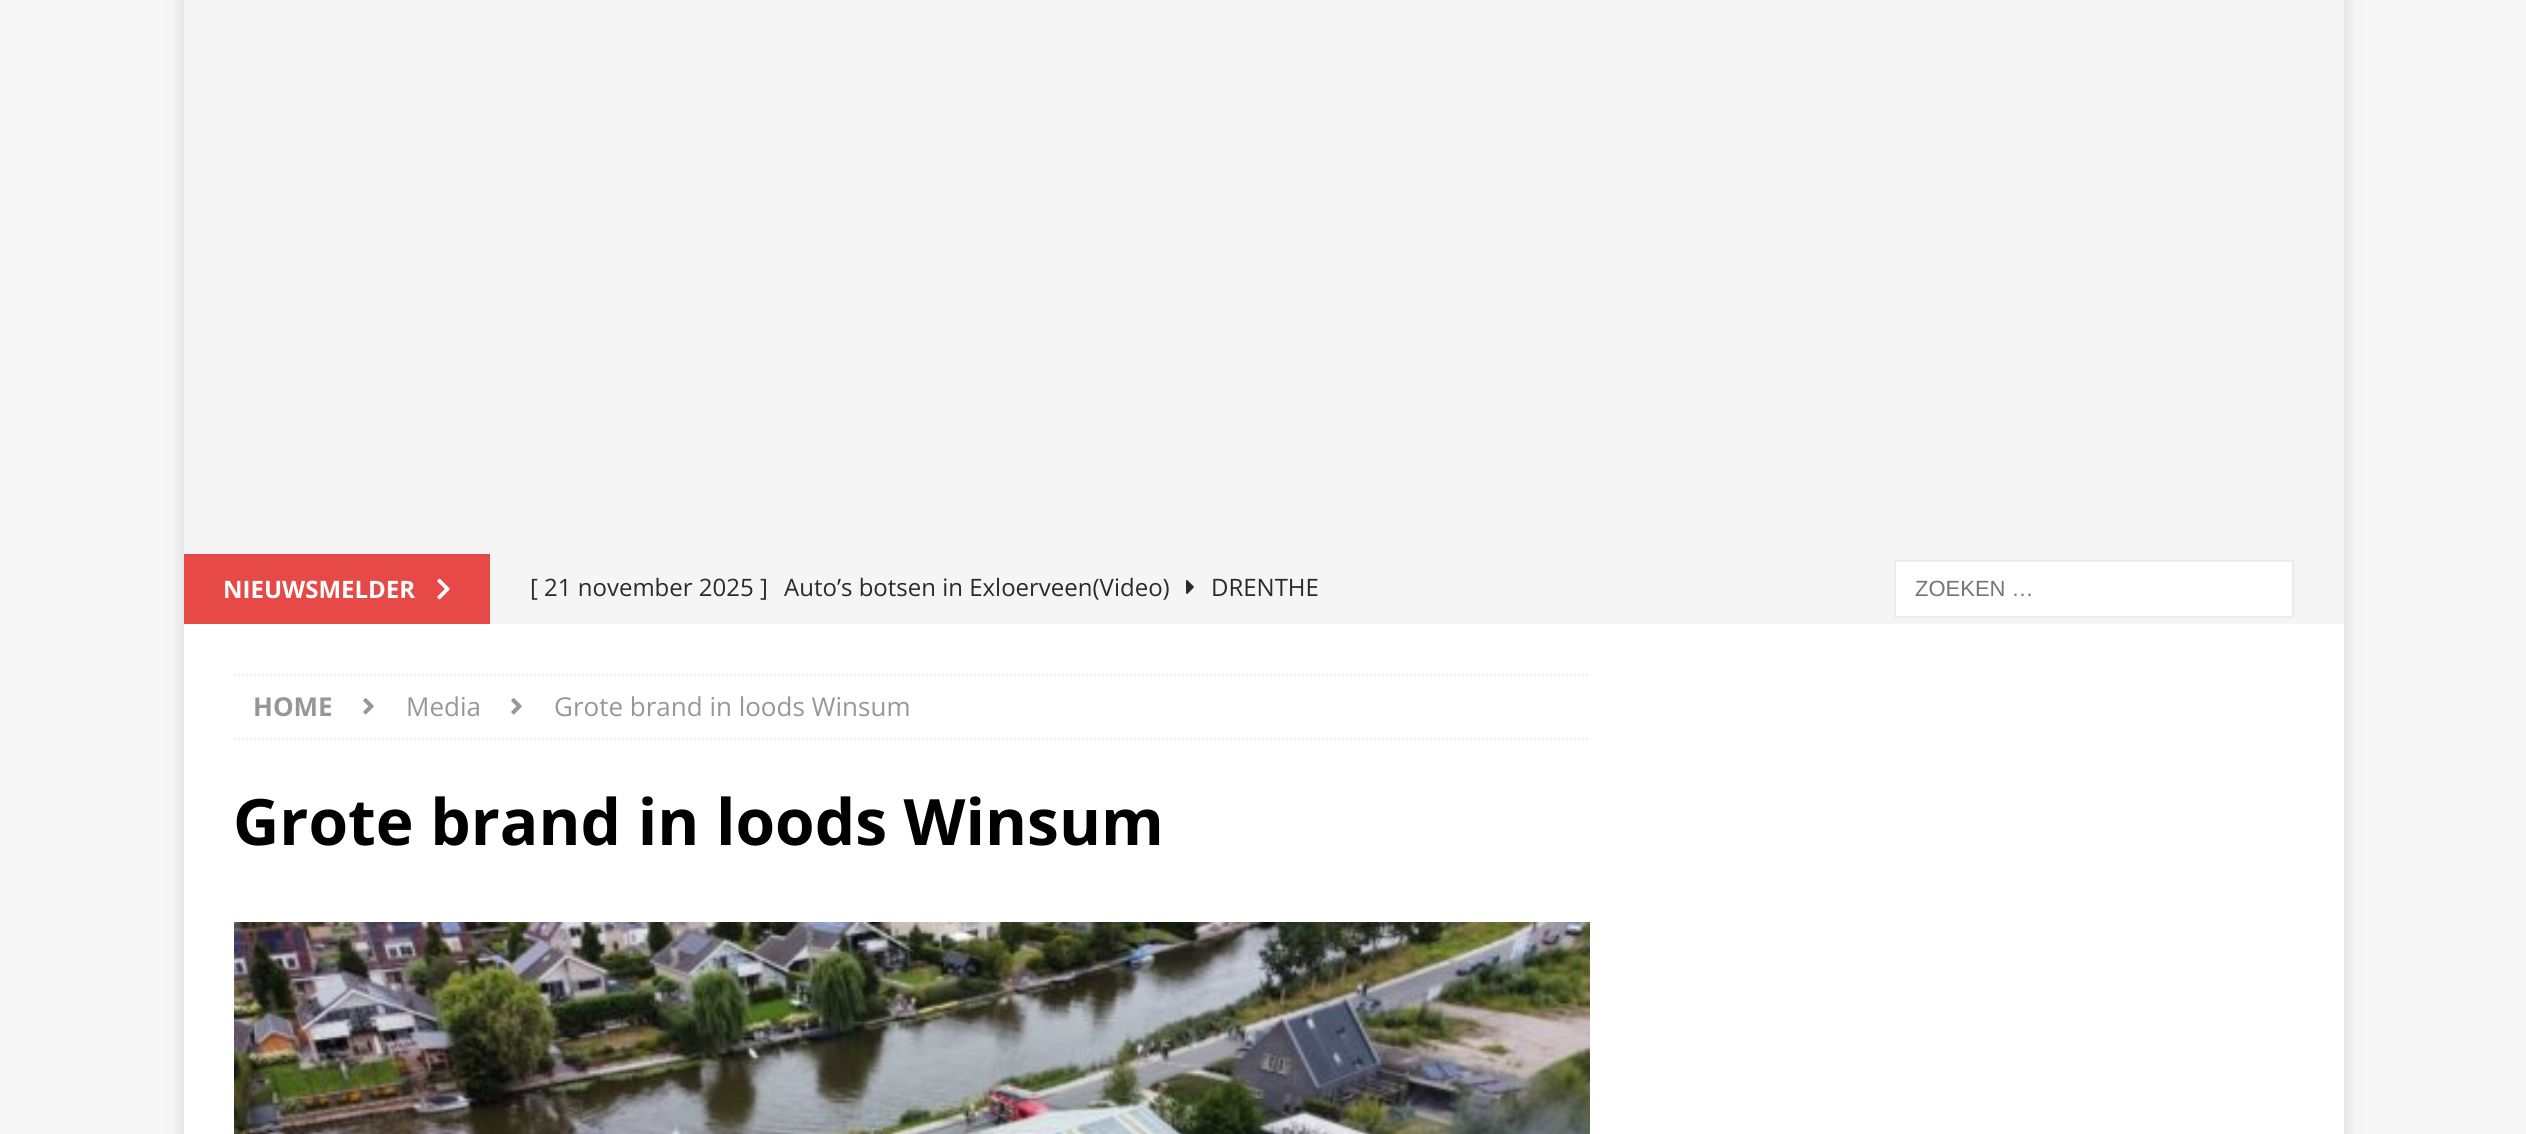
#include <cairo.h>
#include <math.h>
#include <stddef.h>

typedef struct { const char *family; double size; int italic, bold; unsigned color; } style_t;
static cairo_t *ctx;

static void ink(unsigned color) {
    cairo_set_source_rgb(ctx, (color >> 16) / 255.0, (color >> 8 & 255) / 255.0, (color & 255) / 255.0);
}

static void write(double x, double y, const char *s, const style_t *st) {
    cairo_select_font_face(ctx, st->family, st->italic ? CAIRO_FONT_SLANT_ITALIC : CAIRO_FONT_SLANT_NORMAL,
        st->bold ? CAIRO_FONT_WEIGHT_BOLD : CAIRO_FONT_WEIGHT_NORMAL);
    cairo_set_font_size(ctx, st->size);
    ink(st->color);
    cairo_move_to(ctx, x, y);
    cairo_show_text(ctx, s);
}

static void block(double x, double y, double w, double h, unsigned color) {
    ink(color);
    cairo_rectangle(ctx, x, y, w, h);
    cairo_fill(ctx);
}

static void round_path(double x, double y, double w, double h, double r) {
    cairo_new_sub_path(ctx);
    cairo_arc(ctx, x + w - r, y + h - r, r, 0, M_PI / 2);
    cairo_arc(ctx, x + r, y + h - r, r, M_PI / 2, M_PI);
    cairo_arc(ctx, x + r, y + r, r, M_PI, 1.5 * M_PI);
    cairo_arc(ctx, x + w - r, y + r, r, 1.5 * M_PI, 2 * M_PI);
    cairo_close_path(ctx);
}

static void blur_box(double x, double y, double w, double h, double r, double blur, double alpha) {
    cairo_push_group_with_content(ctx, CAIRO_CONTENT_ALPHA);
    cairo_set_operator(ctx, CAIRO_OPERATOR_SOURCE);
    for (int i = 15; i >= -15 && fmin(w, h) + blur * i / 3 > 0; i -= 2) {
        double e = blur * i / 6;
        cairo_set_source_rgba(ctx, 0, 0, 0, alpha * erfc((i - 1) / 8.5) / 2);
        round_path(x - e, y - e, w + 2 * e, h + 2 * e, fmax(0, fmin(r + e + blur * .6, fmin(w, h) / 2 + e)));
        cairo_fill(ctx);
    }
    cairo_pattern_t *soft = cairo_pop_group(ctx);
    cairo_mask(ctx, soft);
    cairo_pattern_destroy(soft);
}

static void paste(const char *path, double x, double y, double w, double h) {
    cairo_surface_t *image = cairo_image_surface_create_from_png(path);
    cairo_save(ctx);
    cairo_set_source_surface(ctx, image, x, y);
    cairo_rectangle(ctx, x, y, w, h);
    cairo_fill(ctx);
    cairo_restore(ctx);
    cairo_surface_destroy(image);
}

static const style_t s1 = {"Open Sans", 24, 0, 1, 0xffffff};
static const style_t s2 = {"Open Sans", 24, 0, 0, 0x2a2a2a};
static const style_t s3 = {"Liberation Sans", 22, 0, 0, 0x757575};
static const style_t s4 = {"Open Sans", 26, 0, 1, 0x979797};
static const style_t s5 = {"Open Sans", 26, 0, 0, 0x979797};
static const style_t s6 = {"Open Sans", 64, 0, 1, 0x000000};

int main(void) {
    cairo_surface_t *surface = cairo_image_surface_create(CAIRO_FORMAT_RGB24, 2526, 1134);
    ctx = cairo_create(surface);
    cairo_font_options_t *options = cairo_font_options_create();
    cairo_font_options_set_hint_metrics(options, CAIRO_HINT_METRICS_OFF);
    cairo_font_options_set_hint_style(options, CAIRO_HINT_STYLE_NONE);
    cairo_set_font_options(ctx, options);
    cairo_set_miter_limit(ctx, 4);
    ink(0xf7f7f7);
    cairo_paint(ctx);
    ink(0x323232);
    blur_box(184, -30, 2160, 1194, 0, 10, 0.17);
    block(184, 0, 2160, 624, 0xf5f5f5);
    block(184, 554, 306, 70, 0xe64946);
    write(223, 598, "NIEUWSMELDER", &s1);
    paste("pic1.png", 437, 578, 13, 22);
    write(530, 596, "[ 21 november 2025 ]", &s2);
    write(784, 596, "Auto’s botsen in Exloerveen(Video)", &s2);
    paste("pic2.png", 1186, 580, 8, 14);
    write(1211, 596, "DRENTHE", &s2);
    ink(0xffffff);
    cairo_rectangle(ctx, 1895, 561, 398, 56);
    cairo_fill_preserve(ctx);
    ink(0xebebeb);
    cairo_stroke(ctx);
    write(1915, 596, "ZOEKEN …", &s3);
    block(184, 624, 2160, 510, 0xffffff);
    cairo_new_path(ctx);
    cairo_move_to(ctx, 234, 675);
    cairo_line_to(ctx, 1590, 675);
    ink(0xebebeb);
    cairo_set_dash(ctx, (double[]){2, 2}, 2, 0);
    cairo_stroke(ctx);
    cairo_new_path(ctx);
    cairo_move_to(ctx, 234, 739);
    cairo_line_to(ctx, 1590, 739);
    cairo_stroke(ctx);
    write(253, 716, "HOME", &s4);
    paste("pic3.png", 363, 698, 11, 17);
    write(406, 716, "Media", &s5);
    paste("pic3.png", 511, 698, 11, 17);
    write(554, 716, "Grote brand in loods Winsum", &s5);
    write(233, 845, "Grote brand in loods Winsum", &s6);
    paste("pic4.png", 234, 922, 1356, 212);
    cairo_surface_write_to_png(surface, "screenshot.png");
    cairo_font_options_destroy(options);
    cairo_destroy(ctx);
    cairo_surface_destroy(surface);
    return 0;
}
